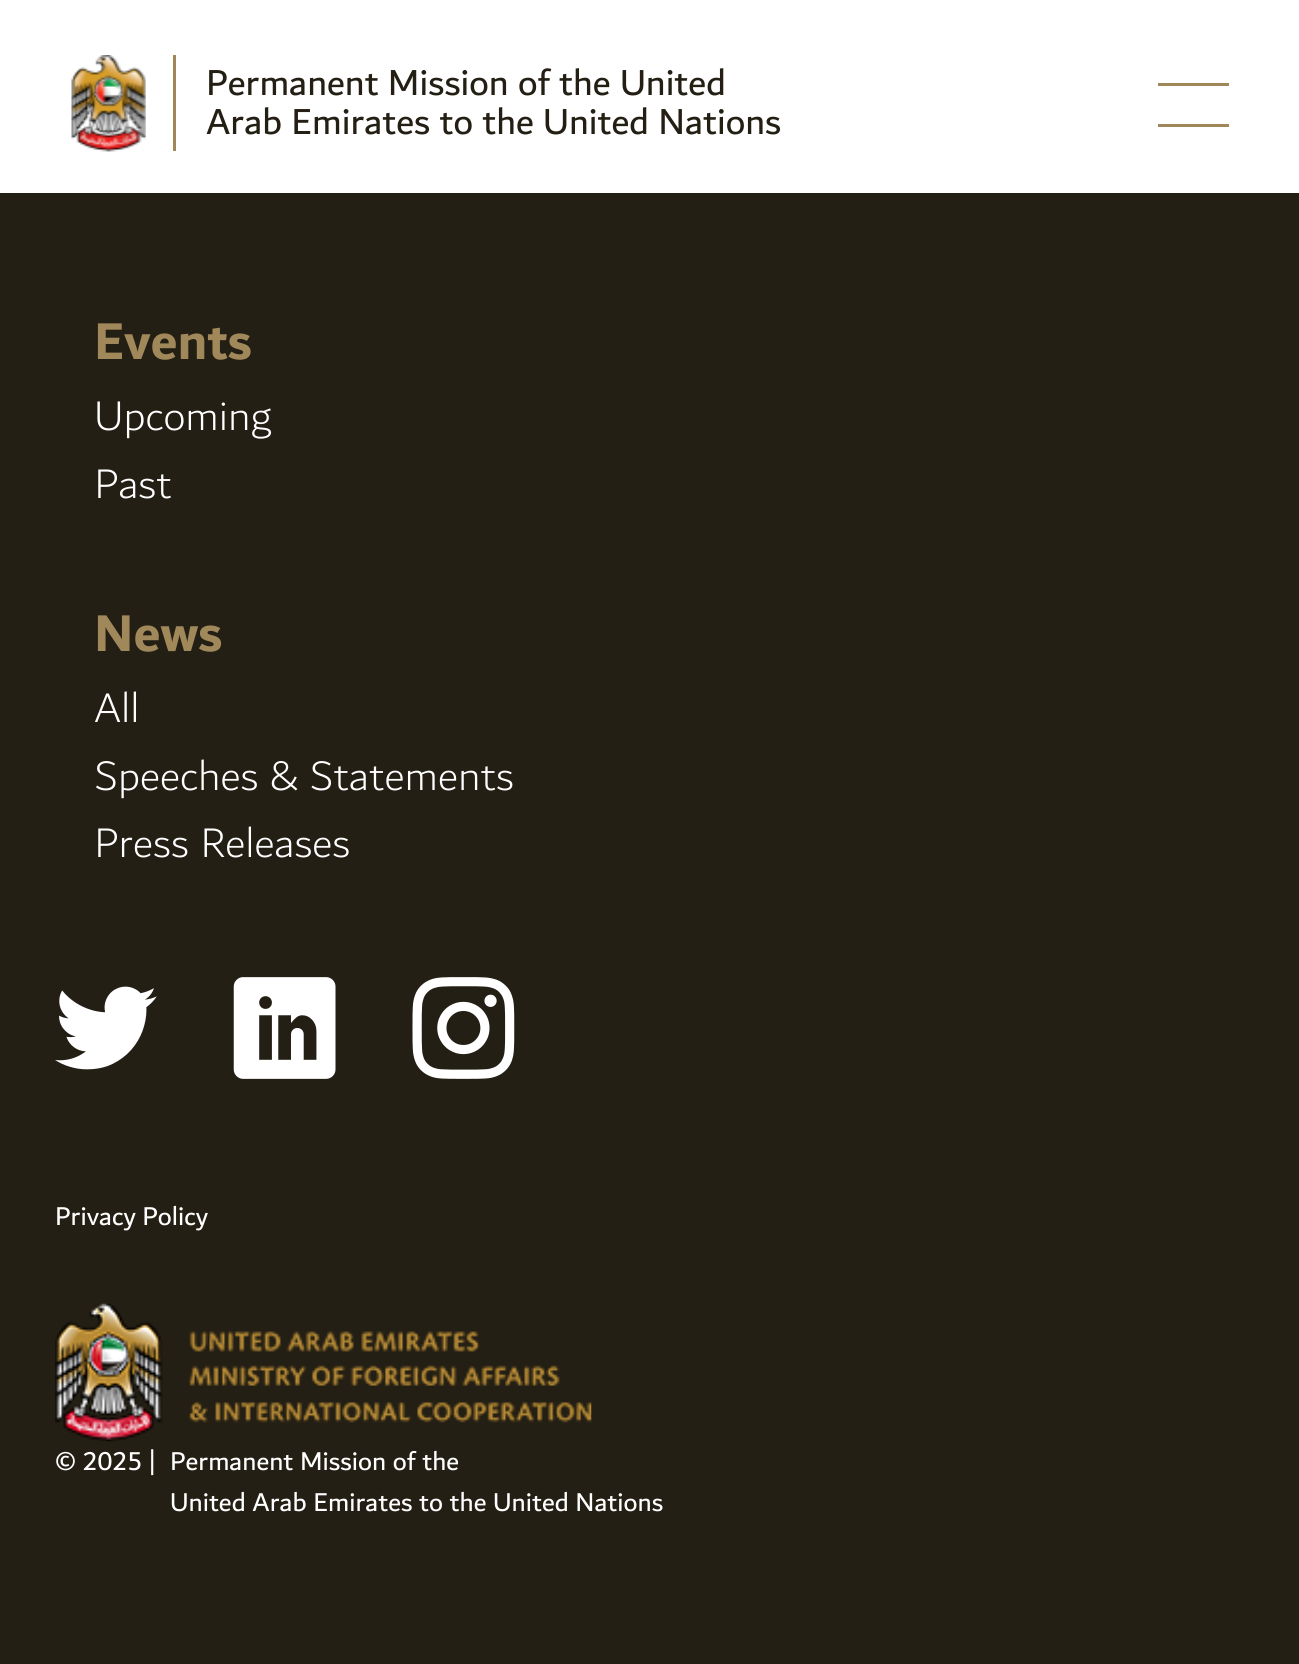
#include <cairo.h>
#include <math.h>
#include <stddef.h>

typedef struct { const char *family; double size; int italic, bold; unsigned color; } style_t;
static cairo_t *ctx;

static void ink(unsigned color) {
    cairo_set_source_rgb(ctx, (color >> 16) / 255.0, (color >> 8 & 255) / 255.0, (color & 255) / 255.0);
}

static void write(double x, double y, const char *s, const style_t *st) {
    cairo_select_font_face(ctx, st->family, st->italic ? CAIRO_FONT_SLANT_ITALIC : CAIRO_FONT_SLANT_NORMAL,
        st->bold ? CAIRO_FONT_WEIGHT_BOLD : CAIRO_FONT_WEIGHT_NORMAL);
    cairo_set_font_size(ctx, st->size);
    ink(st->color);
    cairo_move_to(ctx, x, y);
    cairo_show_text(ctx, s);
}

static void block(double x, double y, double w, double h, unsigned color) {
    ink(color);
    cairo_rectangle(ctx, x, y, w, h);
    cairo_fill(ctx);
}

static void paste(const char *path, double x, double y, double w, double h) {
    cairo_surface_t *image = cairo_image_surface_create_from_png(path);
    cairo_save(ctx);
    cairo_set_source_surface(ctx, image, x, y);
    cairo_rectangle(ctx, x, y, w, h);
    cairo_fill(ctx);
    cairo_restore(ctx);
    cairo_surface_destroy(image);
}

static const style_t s1 = {"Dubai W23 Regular", 38.5, 0, 0, 0x241f14};
static const style_t s2 = {"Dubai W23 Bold", 55, 0, 1, 0xa1885a};
static const style_t s3 = {"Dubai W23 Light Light", 44, 0, 0, 0xffffff};
static const style_t s4 = {"Dubai W23 Regular", 27.5, 0, 0, 0xffffff};

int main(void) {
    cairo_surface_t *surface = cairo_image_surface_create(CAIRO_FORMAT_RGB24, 1299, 1664);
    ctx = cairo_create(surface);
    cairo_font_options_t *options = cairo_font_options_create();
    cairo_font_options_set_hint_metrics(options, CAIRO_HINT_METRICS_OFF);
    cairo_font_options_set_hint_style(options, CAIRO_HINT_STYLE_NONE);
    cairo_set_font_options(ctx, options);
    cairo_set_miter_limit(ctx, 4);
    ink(0x241f14);
    cairo_paint(ctx);
    block(0, 0, 1299, 193, 0xffffff);
    block(173, 55, 3, 96, 0xa0875a);
    paste("pic1.png", 71, 55, 75, 97);
    write(206, 95, "Permanent Mission of the United", &s1);
    write(206, 134, "Arab Emirates to the United Nations", &s1);
    block(1158, 83, 71, 3, 0xa0875a);
    block(1158, 124, 71, 3, 0xa0875a);
    write(94, 359, "Events", &s2);
    write(94, 430, "Upcoming", &s3);
    write(94, 498, "Past", &s3);
    write(94, 651, "News", &s2);
    write(94, 722, "All", &s3);
    write(94, 790, "Speeches & Statements", &s3);
    write(94, 857, "Press Releases", &s3);
    paste("pic2.png", 55, 986, 102, 84);
    paste("pic3.png", 233, 977, 103, 102);
    paste("pic4.png", 412, 977, 103, 102);
    write(55, 1225, "Privacy Policy", &s4);
    paste("pic5.png", 55, 1303, 537, 139);
    write(55, 1470, "© 2025 |", &s4);
    write(170, 1470, "Permanent Mission of the", &s4);
    write(170, 1511, "United Arab Emirates to the United Nations", &s4);
    cairo_surface_write_to_png(surface, "screenshot.png");
    cairo_font_options_destroy(options);
    cairo_destroy(ctx);
    cairo_surface_destroy(surface);
    return 0;
}
